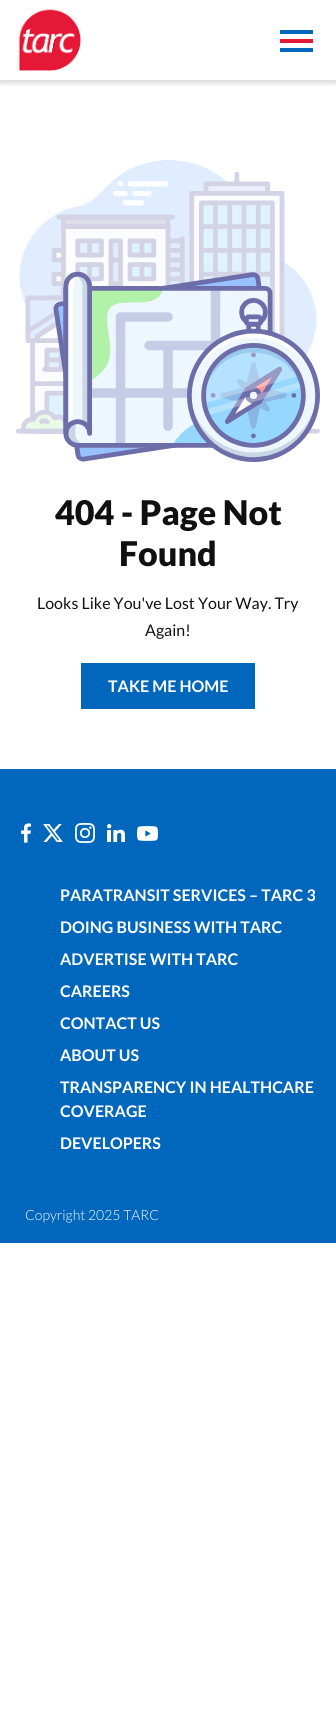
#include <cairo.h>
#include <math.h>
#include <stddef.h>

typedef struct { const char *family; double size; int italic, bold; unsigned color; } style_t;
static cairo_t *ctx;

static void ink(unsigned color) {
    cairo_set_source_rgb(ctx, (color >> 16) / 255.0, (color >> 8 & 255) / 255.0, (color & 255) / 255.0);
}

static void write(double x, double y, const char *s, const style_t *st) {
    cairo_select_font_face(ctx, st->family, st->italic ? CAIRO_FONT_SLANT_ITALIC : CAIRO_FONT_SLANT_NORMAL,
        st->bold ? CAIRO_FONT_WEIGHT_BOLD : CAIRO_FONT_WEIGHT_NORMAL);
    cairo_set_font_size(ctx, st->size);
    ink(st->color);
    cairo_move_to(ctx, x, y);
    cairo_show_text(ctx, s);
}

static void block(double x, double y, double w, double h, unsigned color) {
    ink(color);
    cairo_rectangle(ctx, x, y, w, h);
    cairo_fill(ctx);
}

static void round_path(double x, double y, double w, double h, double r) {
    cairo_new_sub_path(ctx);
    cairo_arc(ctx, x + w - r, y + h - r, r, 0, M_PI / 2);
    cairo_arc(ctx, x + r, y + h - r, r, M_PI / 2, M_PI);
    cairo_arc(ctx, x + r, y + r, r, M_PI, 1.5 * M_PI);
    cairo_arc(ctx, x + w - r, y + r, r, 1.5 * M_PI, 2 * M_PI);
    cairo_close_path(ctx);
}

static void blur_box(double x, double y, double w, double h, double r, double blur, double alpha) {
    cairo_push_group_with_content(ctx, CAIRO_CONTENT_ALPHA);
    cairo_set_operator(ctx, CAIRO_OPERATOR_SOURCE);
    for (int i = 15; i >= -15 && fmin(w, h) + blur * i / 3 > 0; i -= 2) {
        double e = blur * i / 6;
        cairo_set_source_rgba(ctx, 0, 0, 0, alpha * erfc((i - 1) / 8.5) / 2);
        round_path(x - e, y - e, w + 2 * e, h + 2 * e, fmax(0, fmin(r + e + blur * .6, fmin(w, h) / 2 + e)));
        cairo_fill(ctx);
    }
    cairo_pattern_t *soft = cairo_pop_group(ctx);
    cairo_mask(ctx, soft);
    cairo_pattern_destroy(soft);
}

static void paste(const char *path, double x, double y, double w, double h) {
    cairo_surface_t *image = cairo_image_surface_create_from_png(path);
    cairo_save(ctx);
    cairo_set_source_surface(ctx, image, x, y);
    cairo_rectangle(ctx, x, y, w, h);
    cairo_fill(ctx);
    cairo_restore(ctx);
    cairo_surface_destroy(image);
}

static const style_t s1 = {"Lato Black", 34, 0, 0, 0x101010};
static const style_t s2 = {"Lato", 16, 0, 0, 0x101010};
static const style_t s3 = {"Lato", 16, 0, 1, 0xffffff};
static const style_t s4 = {"Lato Light", 14, 0, 0, 0xffffff};

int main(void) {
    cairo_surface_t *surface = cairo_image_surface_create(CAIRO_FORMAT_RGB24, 336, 1724);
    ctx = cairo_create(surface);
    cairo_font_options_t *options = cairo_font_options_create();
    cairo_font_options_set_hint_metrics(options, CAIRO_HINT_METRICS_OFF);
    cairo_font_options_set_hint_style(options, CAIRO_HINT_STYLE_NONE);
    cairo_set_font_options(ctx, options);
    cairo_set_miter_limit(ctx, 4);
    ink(0xffffff);
    cairo_paint(ctx);
    cairo_save(ctx);
    cairo_rectangle(ctx, 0, 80, 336, 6);
    cairo_clip(ctx);
    ink(0x000000);
    blur_box(0, 3, 336, 80, 0, 3, 0.16);
    cairo_restore(ctx);
    paste("pic1.png", 18, 9, 63, 62);
    block(280, 30, 33, 4, 0x0067bc);
    block(280, 39, 33, 4, 0xe51837);
    block(280, 48, 33, 4, 0x0067bc);
    paste("pic2.png", 16, 160, 304, 302);
    write(55, 525, "404 - Page Not", &s1);
    write(119, 566, "Found", &s1);
    write(37, 609, "Looks Like You've Lost Your Way. Try", &s2);
    write(145, 636, "Again!", &s2);
    block(81, 663, 174, 46, 0x0067bc);
    write(108, 692, "TAKE ME HOME", &s3);
    block(0, 769, 336, 474, 0x0067bc);
    paste("pic3.png", 21, 823, 10, 20);
    paste("pic4.png", 43, 824, 20, 18);
    paste("pic5.png", 75, 823, 20, 20);
    paste("pic6.png", 107, 824, 18, 18);
    paste("pic7.png", 137, 826, 21, 15);
    write(60, 901, "PARATRANSIT SERVICES – TARC 3", &s3);
    write(60, 933, "DOING BUSINESS WITH TARC", &s3);
    write(60, 965, "ADVERTISE WITH TARC", &s3);
    write(60, 997, "CAREERS", &s3);
    write(60, 1029, "CONTACT US", &s3);
    write(60, 1061, "ABOUT US", &s3);
    write(60, 1093, "TRANSPARENCY IN HEALTHCARE", &s3);
    write(60, 1117, "COVERAGE", &s3);
    write(60, 1149, "DEVELOPERS", &s3);
    write(25, 1220, "Copyright 2025 TARC", &s4);
    cairo_surface_write_to_png(surface, "screenshot.png");
    cairo_font_options_destroy(options);
    cairo_destroy(ctx);
    cairo_surface_destroy(surface);
    return 0;
}
